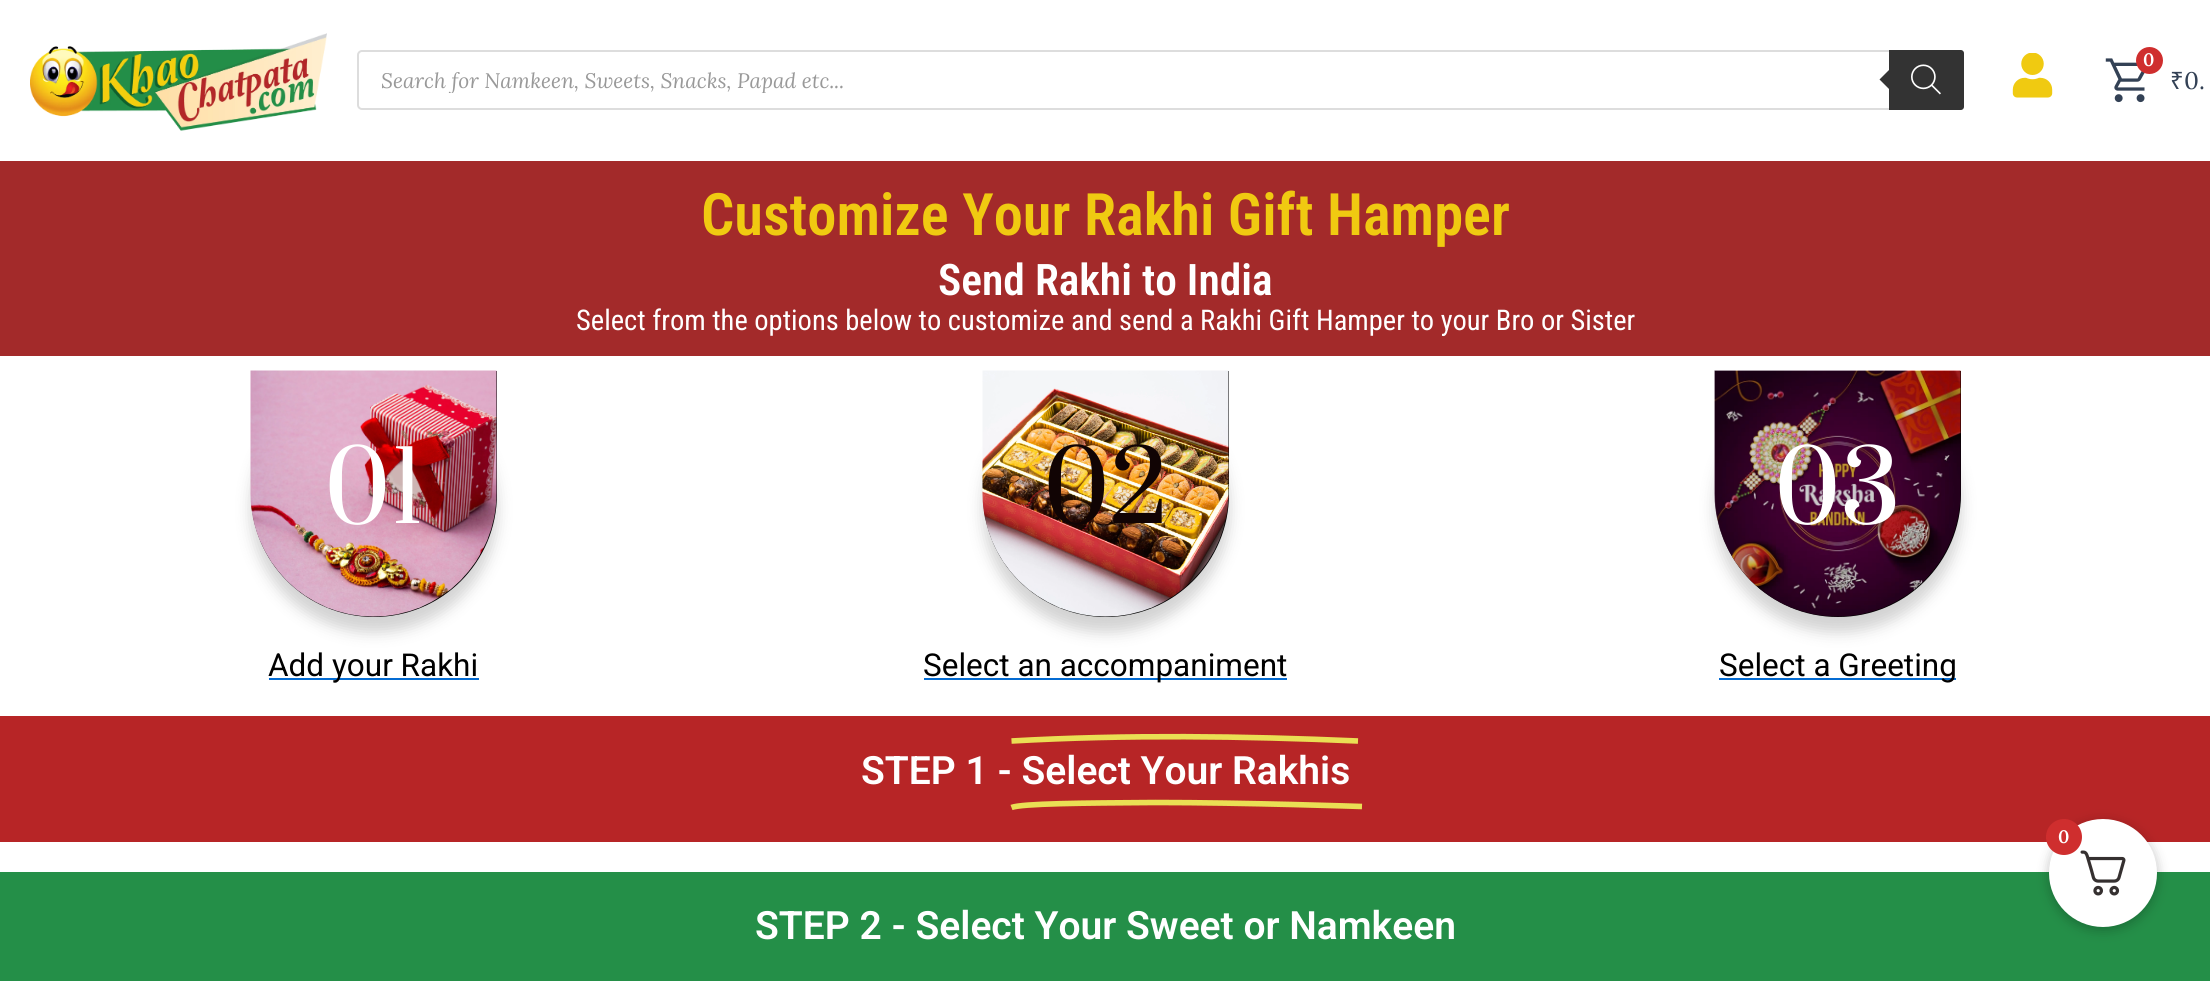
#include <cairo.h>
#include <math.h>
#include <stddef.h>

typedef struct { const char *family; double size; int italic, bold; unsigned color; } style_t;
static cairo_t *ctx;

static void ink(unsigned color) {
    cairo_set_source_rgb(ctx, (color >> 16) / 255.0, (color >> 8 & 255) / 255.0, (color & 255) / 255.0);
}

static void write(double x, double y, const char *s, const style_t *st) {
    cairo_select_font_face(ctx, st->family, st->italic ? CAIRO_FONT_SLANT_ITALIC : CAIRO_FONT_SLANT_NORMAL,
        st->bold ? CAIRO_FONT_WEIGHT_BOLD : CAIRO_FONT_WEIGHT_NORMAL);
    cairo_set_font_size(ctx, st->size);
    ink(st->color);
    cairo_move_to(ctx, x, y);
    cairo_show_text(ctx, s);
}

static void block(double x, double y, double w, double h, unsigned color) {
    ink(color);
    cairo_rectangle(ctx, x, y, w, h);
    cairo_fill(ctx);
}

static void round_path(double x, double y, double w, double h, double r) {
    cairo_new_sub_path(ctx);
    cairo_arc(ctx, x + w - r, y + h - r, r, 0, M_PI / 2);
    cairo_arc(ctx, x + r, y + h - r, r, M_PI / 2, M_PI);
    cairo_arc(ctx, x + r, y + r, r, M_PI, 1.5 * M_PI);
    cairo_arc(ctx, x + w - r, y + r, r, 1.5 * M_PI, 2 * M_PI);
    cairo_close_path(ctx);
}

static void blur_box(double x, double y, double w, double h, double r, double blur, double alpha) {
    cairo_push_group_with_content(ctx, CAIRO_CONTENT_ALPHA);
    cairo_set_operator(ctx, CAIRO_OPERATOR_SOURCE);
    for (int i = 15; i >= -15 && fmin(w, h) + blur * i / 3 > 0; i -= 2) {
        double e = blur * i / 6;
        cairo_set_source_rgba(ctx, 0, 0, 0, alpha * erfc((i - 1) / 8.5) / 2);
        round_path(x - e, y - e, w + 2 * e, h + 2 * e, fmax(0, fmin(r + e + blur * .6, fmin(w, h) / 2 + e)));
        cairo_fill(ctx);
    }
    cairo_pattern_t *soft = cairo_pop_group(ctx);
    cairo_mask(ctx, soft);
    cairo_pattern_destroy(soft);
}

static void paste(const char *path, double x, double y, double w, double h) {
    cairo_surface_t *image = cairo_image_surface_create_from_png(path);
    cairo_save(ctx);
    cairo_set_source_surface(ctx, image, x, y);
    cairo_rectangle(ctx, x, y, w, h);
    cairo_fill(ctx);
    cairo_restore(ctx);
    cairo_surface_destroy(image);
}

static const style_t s1 = {"Lora", 21, 1, 0, 0x999999};
static const style_t s2 = {"Lora SemiBold", 18, 0, 0, 0xffffff};
static const style_t s3 = {"Noto Sans", 24, 0, 0, 0x334155};
static const style_t s4 = {"Lora", 24, 0, 0, 0x334155};
static const style_t s5 = {"Roboto Condensed SemiBold", 58.5, 0, 0, 0xf0ca11};
static const style_t s6 = {"Roboto Condensed SemiBold", 43.5, 0, 0, 0xffffff};
static const style_t s7 = {"Roboto Condensed", 28.5, 0, 0, 0xffffff};
static const style_t s8 = {"Prata", 96, 0, 0, 0xffffff};
static const style_t s9 = {"Roboto", 31.5, 0, 0, 0x000000};
static const style_t s10 = {"Prata", 96, 0, 0, 0x110404};
static const style_t s11 = {"Roboto SemiBold", 39, 0, 0, 0xffffff};

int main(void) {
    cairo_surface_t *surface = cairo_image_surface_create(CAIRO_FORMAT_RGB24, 2210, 981);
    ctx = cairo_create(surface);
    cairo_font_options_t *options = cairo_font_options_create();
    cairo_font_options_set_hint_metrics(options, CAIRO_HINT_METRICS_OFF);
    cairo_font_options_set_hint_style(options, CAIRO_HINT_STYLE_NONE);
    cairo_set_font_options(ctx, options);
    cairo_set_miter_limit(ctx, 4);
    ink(0xffffff);
    cairo_paint(ctx);
    paste("pic1.png", 30, 33, 297, 98);
    round_path(358, 51, 1605, 58, 4);
    ink(0xdddddd);
    cairo_stroke(ctx);
    cairo_save(ctx);
    cairo_rectangle(ctx, 381, 66, 1559, 27);
    cairo_clip(ctx);
    write(381, 88, "Search for Namkeen, Sweets, Snacks, Papad etc...", &s1);
    cairo_restore(ctx);
    ink(0x333333);
    cairo_new_path(ctx);
    cairo_move_to(ctx, 1889, 50);
    cairo_line_to(ctx, 1961, 50);
    cairo_curve_to(ctx, 1962.5, 50, 1964, 51.5, 1964, 53);
    cairo_line_to(ctx, 1964, 107);
    cairo_curve_to(ctx, 1964, 108.5, 1962.5, 110, 1961, 110);
    cairo_line_to(ctx, 1889, 110);
    cairo_close_path(ctx);
    cairo_fill(ctx);
    cairo_new_path(ctx);
    cairo_move_to(ctx, 1891.5, 67.5);
    cairo_line_to(ctx, 1891.5, 91.5);
    cairo_line_to(ctx, 1879.5, 79.5);
    cairo_close_path(ctx);
    cairo_fill(ctx);
    paste("pic2.png", 1911, 64, 30, 31);
    paste("pic3.png", 2012, 53, 41, 45);
    paste("pic4.png", 2105, 58, 40, 45);
    ink(0xcf2e2e);
    cairo_arc(ctx, 2149.5, 60.5, 13.5, 0, 2 * M_PI);
    cairo_fill(ctx);
    write(2143, 66, "0", &s2);
    write(2170, 89, "₹", &s3);
    write(2184, 89, "0.", &s4);
    block(0, 161, 2210, 195, 0xa32a2a);
    write(701, 235, "Customize Your Rakhi Gift Hamper", &s5);
    write(938, 295, "Send Rakhi to India", &s6);
    write(576, 330, "Select from the options below to customize and send a Rakhi Gift Hamper to your Bro or Sister", &s7);
    ink(0x000000);
    blur_box(251, 386, 246, 246, 123, 7.5, 0.18);
    ink(0x000000);
    cairo_new_path(ctx);
    cairo_move_to(ctx, 251, 371);
    cairo_line_to(ctx, 497, 371);
    cairo_line_to(ctx, 497, 494);
    cairo_curve_to(ctx, 497, 562, 442, 617, 374, 617);
    cairo_curve_to(ctx, 306, 617, 251, 562, 251, 494);
    cairo_close_path(ctx);
    cairo_fill(ctx);
    paste("pic5.png", 250, 370, 247, 247);
    write(324, 523, "01", &s8);
    block(269, 678, 210, 2, 0x046bd2);
    write(268, 676, "Add your Rakhi", &s9);
    ink(0x000000);
    blur_box(983, 386, 246, 246, 123, 7.5, 0.18);
    ink(0x000000);
    cairo_new_path(ctx);
    cairo_move_to(ctx, 983, 371);
    cairo_line_to(ctx, 1229, 371);
    cairo_line_to(ctx, 1229, 494);
    cairo_curve_to(ctx, 1229, 562, 1174, 617, 1106, 617);
    cairo_curve_to(ctx, 1038, 617, 983, 562, 983, 494);
    cairo_close_path(ctx);
    cairo_fill(ctx);
    paste("pic6.png", 982, 370, 247, 247);
    write(1043, 523, "02", &s10);
    block(924, 678, 363, 2, 0x046bd2);
    write(923, 676, "Select an accompaniment", &s9);
    ink(0x000000);
    blur_box(1715, 386, 246, 246, 123, 7.5, 0.18);
    ink(0x000000);
    cairo_new_path(ctx);
    cairo_move_to(ctx, 1715, 371);
    cairo_line_to(ctx, 1961, 371);
    cairo_line_to(ctx, 1961, 494);
    cairo_curve_to(ctx, 1961, 562, 1906, 617, 1838, 617);
    cairo_curve_to(ctx, 1770, 617, 1715, 562, 1715, 494);
    cairo_close_path(ctx);
    cairo_fill(ctx);
    paste("pic7.png", 1714, 370, 247, 247);
    write(1774, 523, "03", &s8);
    block(1719, 678, 237, 2, 0x046bd2);
    write(1719, 676, "Select a Greeting", &s9);
    block(0, 716, 2210, 126, 0xb72526);
    cairo_new_path(ctx);
    cairo_move_to(ctx, 1011.5, 807.5);
    cairo_curve_to(ctx, 1022, 803.5, 1081.5, 803, 1155.5, 802.5);
    cairo_curve_to(ctx, 1243.5, 802.5, 1362, 806.5, 1362, 806.5);
    ink(0xeadf54);
    cairo_set_line_width(ctx, 5.6);
    cairo_stroke(ctx);
    cairo_new_path(ctx);
    cairo_move_to(ctx, 1011.5, 741);
    cairo_curve_to(ctx, 1126.5, 734.5, 1242.5, 736, 1358, 741);
    cairo_stroke(ctx);
    write(861, 784, "STEP 1 - Select Your Rakhis", &s11);
    block(0, 872, 2210, 109, 0x248f48);
    write(755, 939, "STEP 2 - Select Your Sweet or Namkeen", &s11);
    ink(0x000000);
    blur_box(2049, 822, 108, 108, 54, 6, 0.25);
    ink(0xffffff);
    cairo_arc(ctx, 2103, 873, 54, 0, 2 * M_PI);
    cairo_fill(ctx);
    paste("pic8.png", 2080, 850, 46, 46);
    ink(0xcf2e2e);
    cairo_arc(ctx, 2064, 837, 18, 0, 2 * M_PI);
    cairo_fill(ctx);
    write(2058, 843, "0", &s2);
    cairo_surface_write_to_png(surface, "screenshot.png");
    cairo_font_options_destroy(options);
    cairo_destroy(ctx);
    cairo_surface_destroy(surface);
    return 0;
}
